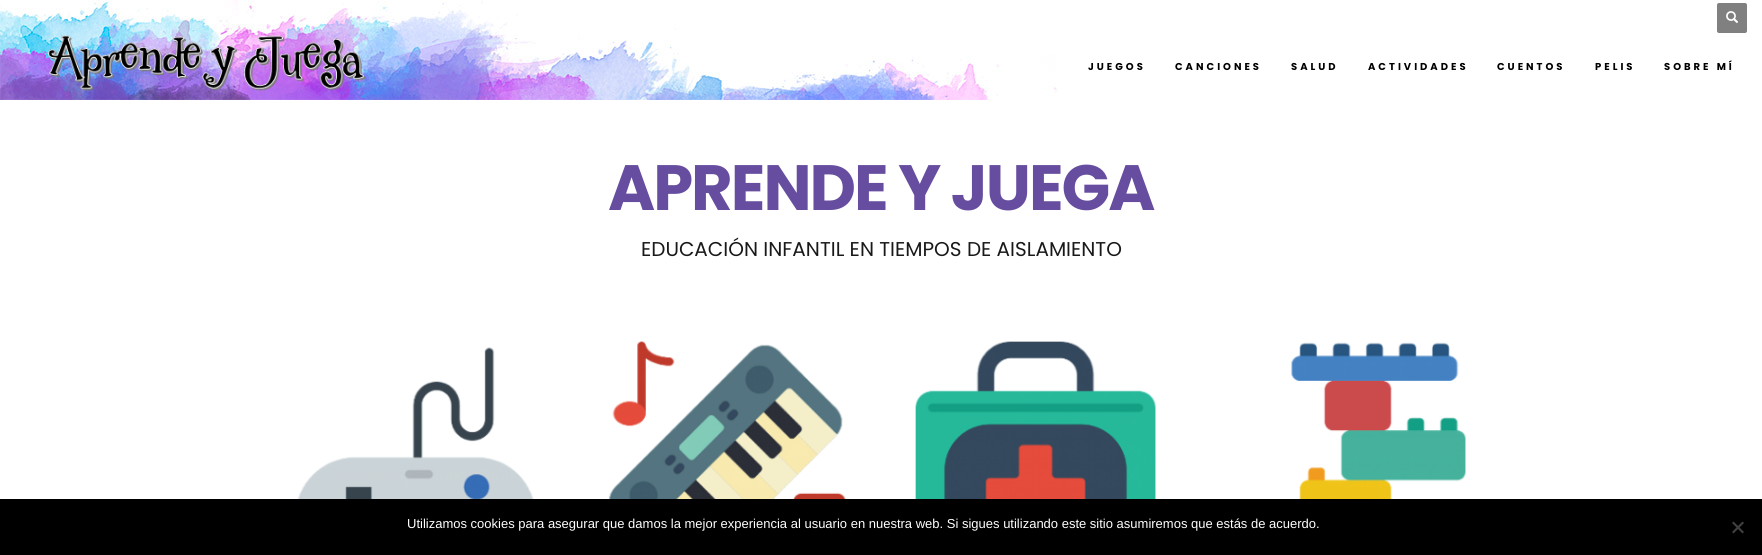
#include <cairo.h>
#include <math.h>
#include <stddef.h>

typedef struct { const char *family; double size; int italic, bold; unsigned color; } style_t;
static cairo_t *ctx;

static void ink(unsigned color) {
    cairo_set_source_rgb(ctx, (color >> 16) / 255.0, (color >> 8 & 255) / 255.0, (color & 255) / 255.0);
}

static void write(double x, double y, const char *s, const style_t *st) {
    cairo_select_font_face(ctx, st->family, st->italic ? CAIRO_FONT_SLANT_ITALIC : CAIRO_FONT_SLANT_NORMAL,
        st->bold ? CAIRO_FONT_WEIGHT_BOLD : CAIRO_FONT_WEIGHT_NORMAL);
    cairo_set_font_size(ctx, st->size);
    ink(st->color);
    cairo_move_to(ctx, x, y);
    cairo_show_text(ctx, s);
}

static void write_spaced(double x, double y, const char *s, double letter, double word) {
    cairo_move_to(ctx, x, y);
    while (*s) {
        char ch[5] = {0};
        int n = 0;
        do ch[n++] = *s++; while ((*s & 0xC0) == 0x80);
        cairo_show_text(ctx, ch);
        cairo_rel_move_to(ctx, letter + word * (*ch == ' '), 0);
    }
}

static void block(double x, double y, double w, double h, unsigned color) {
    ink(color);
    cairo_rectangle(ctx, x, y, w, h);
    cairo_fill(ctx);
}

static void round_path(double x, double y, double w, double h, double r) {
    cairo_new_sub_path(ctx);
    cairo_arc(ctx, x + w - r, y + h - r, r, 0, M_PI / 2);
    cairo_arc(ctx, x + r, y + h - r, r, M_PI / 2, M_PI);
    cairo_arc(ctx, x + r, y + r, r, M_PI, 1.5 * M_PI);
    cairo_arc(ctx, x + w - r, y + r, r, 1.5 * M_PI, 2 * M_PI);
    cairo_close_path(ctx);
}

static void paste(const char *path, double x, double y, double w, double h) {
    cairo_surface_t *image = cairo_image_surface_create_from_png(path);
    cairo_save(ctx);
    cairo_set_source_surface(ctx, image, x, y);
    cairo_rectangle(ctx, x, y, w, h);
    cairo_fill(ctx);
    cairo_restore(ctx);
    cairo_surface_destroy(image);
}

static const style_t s1 = {"Poppins", 20, 0, 0, 0x191919};
static const style_t s2 = {"Liberation Sans", 13, 0, 0, 0xffffff};

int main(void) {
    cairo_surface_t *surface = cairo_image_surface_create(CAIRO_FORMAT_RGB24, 1762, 555);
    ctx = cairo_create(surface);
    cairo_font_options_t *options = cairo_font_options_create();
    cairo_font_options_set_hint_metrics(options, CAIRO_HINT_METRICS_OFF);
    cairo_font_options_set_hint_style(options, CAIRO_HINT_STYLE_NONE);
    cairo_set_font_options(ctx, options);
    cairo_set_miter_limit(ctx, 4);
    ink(0xffffff);
    cairo_paint(ctx);
    paste("pic1.png", 0, 0, 1058, 100);
    ink(0x808080);
    round_path(1717, 3, 30, 30, 2);
    cairo_fill(ctx);
    paste("pic2.png", 1726, 11, 12, 12);
    paste("pic3.png", 48, 35, 318, 56);
    cairo_select_font_face(ctx, "Poppins", CAIRO_FONT_SLANT_NORMAL, CAIRO_FONT_WEIGHT_BOLD);
    cairo_set_font_size(ctx, 10);
    ink(0x000000);
    write_spaced(1088, 70, "JUEGOS", 3, 0);
    write_spaced(1175, 70, "CANCIONES", 3, 0);
    write_spaced(1291, 70, "SALUD", 3, 0);
    write_spaced(1368, 70, "ACTIVIDADES", 3, 0);
    write_spaced(1497, 70, "CUENTOS", 3, 0);
    write_spaced(1595, 70, "PELIS", 3, 0);
    write_spaced(1664, 70, "SOBRE MÍ", 3, 0);
    cairo_set_font_size(ctx, 64);
    ink(0x664d9f);
    write_spaced(608, 210, "APRENDE Y JUEGA", -2, 0);
    write(641, 256, "EDUCACIÓN INFANTIL EN TIEMPOS DE AISLAMIENTO", &s1);
    paste("pic4.png", 297, 347, 237, 152);
    paste("pic5.png", 608, 341, 238, 158);
    paste("pic6.png", 915, 341, 241, 158);
    paste("pic7.png", 1290, 342, 176, 157);
    block(0, 499, 1762, 56, 0x000000);
    write(407, 528, "Utilizamos cookies para asegurar que damos la mejor experiencia al usuario en nuestra web. Si sigues utilizando este sitio asumiremos que estás de acuerdo.", &s2);
    ink(0x404040);
    cairo_new_path(ctx);
    cairo_move_to(ctx, 1742.5, 521.5);
    cairo_line_to(ctx, 1744, 523);
    cairo_line_to(ctx, 1733.5, 533.5);
    cairo_line_to(ctx, 1732, 532);
    cairo_close_path(ctx);
    cairo_fill(ctx);
    cairo_new_path(ctx);
    cairo_move_to(ctx, 1732, 523);
    cairo_line_to(ctx, 1733.5, 521.5);
    cairo_line_to(ctx, 1744, 532);
    cairo_line_to(ctx, 1742.5, 533.5);
    cairo_close_path(ctx);
    cairo_fill(ctx);
    cairo_surface_write_to_png(surface, "screenshot.png");
    cairo_font_options_destroy(options);
    cairo_destroy(ctx);
    cairo_surface_destroy(surface);
    return 0;
}
